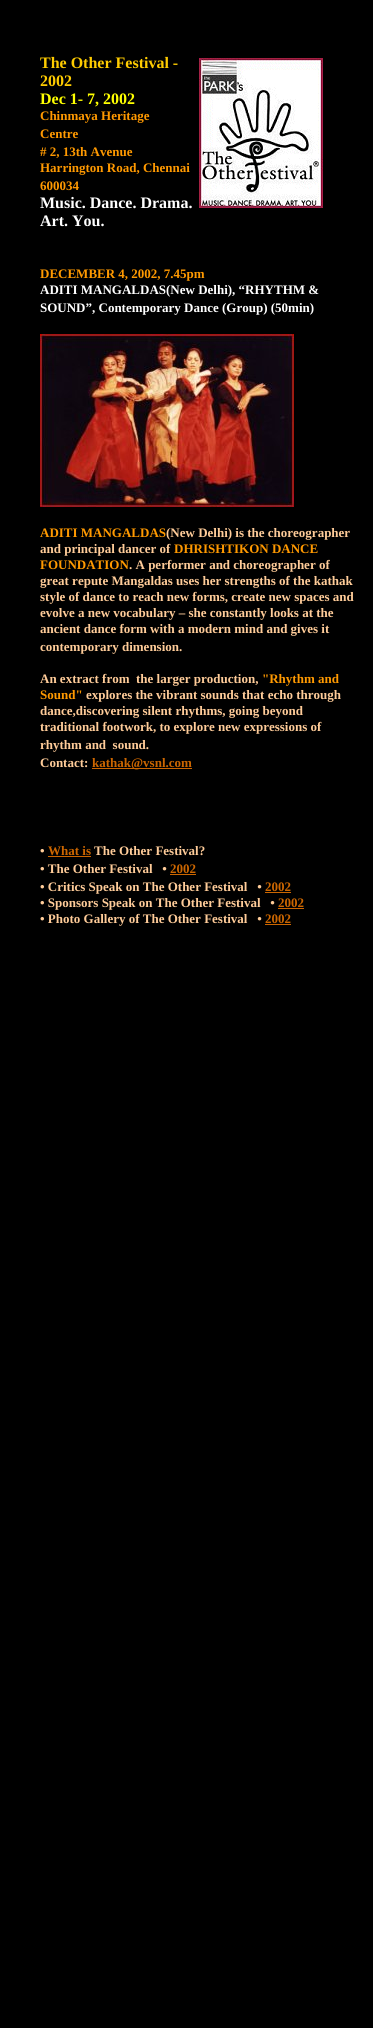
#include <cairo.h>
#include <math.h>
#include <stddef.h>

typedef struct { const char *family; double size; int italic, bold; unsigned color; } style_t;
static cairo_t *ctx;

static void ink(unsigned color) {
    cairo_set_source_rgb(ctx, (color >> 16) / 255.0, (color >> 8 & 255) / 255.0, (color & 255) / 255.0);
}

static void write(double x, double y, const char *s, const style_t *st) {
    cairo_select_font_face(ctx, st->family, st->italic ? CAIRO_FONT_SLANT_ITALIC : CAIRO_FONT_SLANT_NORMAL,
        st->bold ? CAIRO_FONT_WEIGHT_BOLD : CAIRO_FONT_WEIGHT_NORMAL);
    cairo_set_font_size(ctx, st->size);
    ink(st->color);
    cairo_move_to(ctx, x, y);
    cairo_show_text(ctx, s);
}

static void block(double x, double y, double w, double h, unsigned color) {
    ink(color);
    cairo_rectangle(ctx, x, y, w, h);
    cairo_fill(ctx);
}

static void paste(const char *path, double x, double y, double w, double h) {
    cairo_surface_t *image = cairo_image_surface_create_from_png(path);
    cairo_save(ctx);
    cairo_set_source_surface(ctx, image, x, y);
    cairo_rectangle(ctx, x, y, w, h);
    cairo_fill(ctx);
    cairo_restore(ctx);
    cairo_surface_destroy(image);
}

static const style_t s1 = {"Liberation Serif", 16, 0, 1, 0xffcc00};
static const style_t s2 = {"Liberation Serif", 16, 0, 1, 0xffff00};
static const style_t s3 = {"Liberation Serif", 13, 0, 1, 0xff9900};
static const style_t s4 = {"Liberation Serif", 16, 0, 1, 0xffffff};
static const style_t s5 = {"Liberation Serif", 13, 0, 1, 0xffffff};
static const style_t s6 = {"Liberation Serif", 13, 0, 1, 0xffcc99};
static const style_t s7 = {"Liberation Serif", 13, 0, 1, 0xcc6600};

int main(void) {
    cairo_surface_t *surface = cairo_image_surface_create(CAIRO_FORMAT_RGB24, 373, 2028);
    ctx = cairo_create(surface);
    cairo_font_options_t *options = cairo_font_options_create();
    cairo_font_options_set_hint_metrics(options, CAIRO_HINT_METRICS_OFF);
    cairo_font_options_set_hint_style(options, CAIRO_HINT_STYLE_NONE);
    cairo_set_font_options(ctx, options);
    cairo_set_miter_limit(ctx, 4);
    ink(0x000000);
    cairo_paint(ctx);
    write(40, 68, "The Other Festival -", &s1);
    write(40, 86, "2002", &s1);
    write(40, 104, "Dec 1- 7, 2002", &s2);
    write(40, 120, "Chinmaya Heritage", &s3);
    write(40, 138, "Centre", &s3);
    write(40, 156, "# 2, 13th Avenue", &s3);
    write(40, 172, "Harrington Road, Chennai", &s3);
    write(40, 190, "600034", &s3);
    write(40, 208, "Music. Dance. Drama.", &s4);
    write(40, 226, "Art. You.", &s4);
    paste("pic1.png", 199, 58, 124, 150);
    write(40, 278, "DECEMBER 4, 2002, 7.45pm", &s3);
    write(40, 294, "ADITI MANGALDAS(New Delhi), “RHYTHM &", &s5);
    write(40, 312, "SOUND”, Contemporary Dance (Group) (50min)", &s5);
    paste("pic2.png", 40, 334, 254, 173);
    write(40, 537, "ADITI MANGALDAS", &s3);
    write(166, 537, "(New Delhi) is the choreographer", &s6);
    write(40, 553, "and principal dancer of", &s6);
    write(174, 553, "DHRISHTIKON DANCE", &s3);
    write(40, 569, "FOUNDATION", &s3);
    write(129, 569, ". A performer and choreographer of", &s6);
    write(40, 585, "great repute Mangaldas uses her strengths of the kathak", &s6);
    write(40, 601, "style of dance to reach new forms, create new spaces and", &s6);
    write(40, 617, "evolve a new vocabulary – she constantly looks at the", &s6);
    write(40, 633, "ancient dance form with a modern mind and gives it", &s6);
    write(40, 651, "contemporary dimension.", &s6);
    write(40, 683, "An extract from  the larger production,", &s6);
    write(262, 683, "\"Rhythm and", &s3);
    write(40, 699, "Sound\"", &s3);
    write(86, 699, "explores the vibrant sounds that echo through", &s6);
    write(40, 715, "dance,discovering silent rhythms, going beyond", &s6);
    write(40, 731, "traditional footwork, to explore new expressions of", &s6);
    write(40, 749, "rhythm and  sound.", &s6);
    write(40, 767, "Contact:", &s6);
    block(92, 768, 100, 1, 0xcc6600);
    write(92, 767, "kathak@vsnl.com", &s7);
    write(40, 855, "•", &s6);
    write(48, 855, "What is", &s7);
    block(48, 856, 43, 1, 0xcc6600);
    write(94, 855, "The Other Festival?", &s6);
    write(40, 873, "• The Other Festival   •", &s6);
    write(170, 873, "2002", &s7);
    block(170, 874, 26, 1, 0xcc6600);
    write(40, 891, "• Critics Speak on The Other Festival   •", &s6);
    write(265, 891, "2002", &s7);
    block(265, 892, 26, 1, 0xcc6600);
    write(40, 907, "• Sponsors Speak on The Other Festival   •", &s6);
    write(278, 907, "2002", &s7);
    block(278, 908, 26, 1, 0xcc6600);
    write(40, 923, "• Photo Gallery of The Other Festival   •", &s6);
    write(265, 923, "2002", &s7);
    block(265, 924, 26, 1, 0xcc6600);
    cairo_surface_write_to_png(surface, "screenshot.png");
    cairo_font_options_destroy(options);
    cairo_destroy(ctx);
    cairo_surface_destroy(surface);
    return 0;
}
